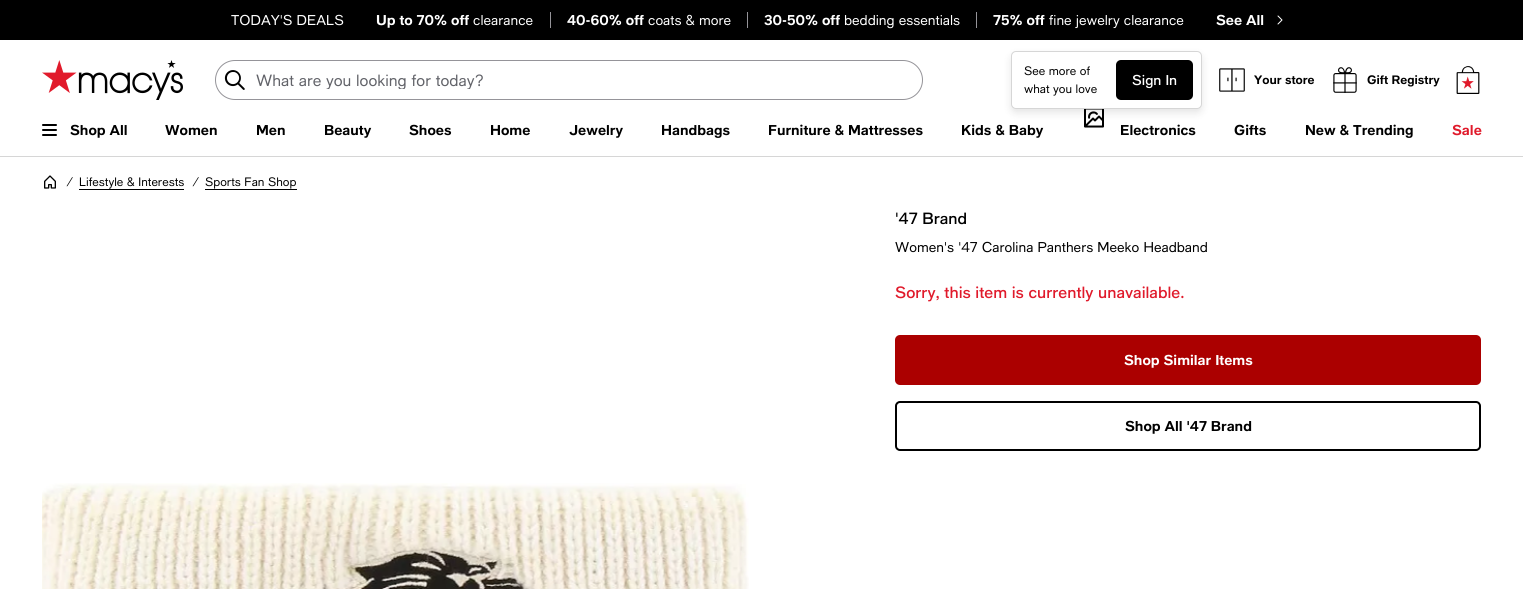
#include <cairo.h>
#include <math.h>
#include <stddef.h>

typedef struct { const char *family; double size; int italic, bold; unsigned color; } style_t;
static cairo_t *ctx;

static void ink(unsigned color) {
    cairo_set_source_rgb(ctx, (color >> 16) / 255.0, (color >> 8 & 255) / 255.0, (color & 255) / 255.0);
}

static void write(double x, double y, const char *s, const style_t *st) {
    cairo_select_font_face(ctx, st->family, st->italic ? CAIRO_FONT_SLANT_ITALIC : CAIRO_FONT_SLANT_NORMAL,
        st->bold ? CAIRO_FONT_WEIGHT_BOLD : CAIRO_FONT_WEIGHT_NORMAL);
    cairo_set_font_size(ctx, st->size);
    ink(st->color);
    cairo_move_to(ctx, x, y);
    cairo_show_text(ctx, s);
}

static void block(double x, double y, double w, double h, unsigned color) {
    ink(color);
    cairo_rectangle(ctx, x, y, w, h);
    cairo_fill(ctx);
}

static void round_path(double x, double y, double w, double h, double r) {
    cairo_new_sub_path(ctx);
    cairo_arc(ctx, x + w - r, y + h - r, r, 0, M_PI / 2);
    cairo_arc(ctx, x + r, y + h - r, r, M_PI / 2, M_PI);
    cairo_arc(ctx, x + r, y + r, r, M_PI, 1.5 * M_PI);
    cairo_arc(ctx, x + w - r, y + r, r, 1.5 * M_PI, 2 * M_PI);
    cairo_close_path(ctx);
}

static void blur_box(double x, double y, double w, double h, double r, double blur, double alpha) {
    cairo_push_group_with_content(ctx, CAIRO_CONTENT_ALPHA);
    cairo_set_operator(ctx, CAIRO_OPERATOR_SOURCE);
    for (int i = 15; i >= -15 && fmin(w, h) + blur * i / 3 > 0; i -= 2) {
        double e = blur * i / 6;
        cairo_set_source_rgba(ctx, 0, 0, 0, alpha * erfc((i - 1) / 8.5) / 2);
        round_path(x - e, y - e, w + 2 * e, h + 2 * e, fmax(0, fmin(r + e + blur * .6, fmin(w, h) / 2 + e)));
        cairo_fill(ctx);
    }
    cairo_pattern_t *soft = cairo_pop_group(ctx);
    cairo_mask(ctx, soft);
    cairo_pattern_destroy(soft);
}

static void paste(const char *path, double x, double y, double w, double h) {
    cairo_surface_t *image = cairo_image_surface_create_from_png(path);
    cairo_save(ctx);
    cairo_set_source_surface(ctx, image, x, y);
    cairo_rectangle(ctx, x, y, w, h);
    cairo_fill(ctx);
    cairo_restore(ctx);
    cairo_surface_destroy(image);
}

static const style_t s1 = {"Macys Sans", 14, 0, 0, 0xffffff};
static const style_t s2 = {"Macys Sans", 14, 0, 1, 0xffffff};
static const style_t s3 = {"Macys Sans", 16, 0, 0, 0x626369};
static const style_t s4 = {"Macys Sans", 12, 0, 0, 0x000000};
static const style_t s5 = {"Macys Sans Medium", 14, 0, 0, 0xffffff};
static const style_t s6 = {"Macys Sans", 12, 0, 1, 0x000000};
static const style_t s7 = {"Macys Sans", 14, 0, 1, 0x000000};
static const style_t s8 = {"Macys Sans", 14, 0, 1, 0xe01a2b};
static const style_t s9 = {"Macys Sans", 12, 1, 0, 0x000000};
static const style_t s10 = {"Macys Sans Medium", 16, 0, 0, 0x000000};
static const style_t s11 = {"Macys Sans", 14, 0, 0, 0x000000};
static const style_t s12 = {"Macys Sans Medium", 16, 0, 0, 0xe01a2b};

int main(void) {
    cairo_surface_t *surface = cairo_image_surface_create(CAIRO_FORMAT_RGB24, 1523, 589);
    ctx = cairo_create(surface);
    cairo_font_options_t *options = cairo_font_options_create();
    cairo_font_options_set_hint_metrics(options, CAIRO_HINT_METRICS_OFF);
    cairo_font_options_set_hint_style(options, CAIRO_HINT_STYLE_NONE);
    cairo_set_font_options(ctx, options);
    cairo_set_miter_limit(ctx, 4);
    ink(0xffffff);
    cairo_paint(ctx);
    block(0, 0, 1523, 40, 0x000000);
    write(231, 25, "TODAY'S DEALS", &s1);
    write(376, 25, "Up to 70% off", &s2);
    write(473, 25, "clearance", &s1);
    block(550, 12, 1, 16, 0x959499);
    write(567, 25, "40-60% off", &s2);
    write(648, 25, "coats & more", &s1);
    block(747, 12, 1, 16, 0x959499);
    write(764, 25, "30-50% off", &s2);
    write(844, 25, "bedding essentials", &s1);
    block(976, 12, 1, 16, 0x959499);
    write(993, 25, "75% off", &s2);
    write(1049, 25, "fine jewelry clearance", &s1);
    write(1216, 25, "See All", &s2);
    cairo_new_path(ctx);
    cairo_move_to(ctx, 1278, 16);
    cairo_line_to(ctx, 1282, 20);
    cairo_line_to(ctx, 1278, 24);
    cairo_set_line_width(ctx, 1);
    cairo_set_line_cap(ctx, CAIRO_LINE_CAP_ROUND);
    cairo_set_line_join(ctx, CAIRO_LINE_JOIN_ROUND);
    cairo_stroke(ctx);
    paste("pic1.png", 42, 60, 141, 40);
    round_path(215.5, 60.5, 707, 39, 19.5);
    ink(0x959499);
    cairo_set_line_cap(ctx, CAIRO_LINE_CAP_BUTT);
    cairo_set_line_join(ctx, CAIRO_LINE_JOIN_MITER);
    cairo_stroke(ctx);
    paste("pic2.png", 224, 70, 21, 20);
    cairo_save(ctx);
    cairo_rectangle(ctx, 256, 71, 654, 18);
    cairo_clip(ctx);
    write(256, 86, "What are you looking for today?", &s3);
    cairo_restore(ctx);
    paste("pic6.png", 1084, 109, 20, 19);
    ink(0x000000);
    blur_box(1011, 55, 191, 58, 5, 4, 0.1);
    ink(0xffffff);
    round_path(1011.5, 51.5, 190, 57, 4.5);
    cairo_fill_preserve(ctx);
    ink(0xd6d6d6);
    cairo_stroke(ctx);
    write(1024, 75, "See more of", &s4);
    write(1024, 93, "what you love", &s4);
    round_path(1116, 60, 77, 40, 5);
    cairo_fill(ctx);
    write(1132, 85, "Sign In", &s5);
    paste("pic3.png", 1219, 68, 26, 24);
    write(1254, 84, "Your store", &s6);
    paste("pic4.png", 1333, 67, 24, 26);
    write(1367, 84, "Gift Registry", &s6);
    paste("pic5.png", 1456, 66, 24, 28);
    block(0, 156, 1523, 1, 0xd6d6d6);
    ink(0x000000);
    round_path(42, 124, 15, 2, 1);
    cairo_fill(ctx);
    round_path(42, 129, 15, 2, 1);
    cairo_fill(ctx);
    round_path(42, 134, 15, 2, 1);
    cairo_fill(ctx);
    write(70, 135, "Shop All", &s7);
    write(165, 135, "Women", &s7);
    write(256, 135, "Men", &s7);
    write(324, 135, "Beauty", &s7);
    write(409, 135, "Shoes", &s7);
    write(490, 135, "Home", &s7);
    write(569, 135, "Jewelry", &s7);
    write(661, 135, "Handbags", &s7);
    write(768, 135, "Furniture & Mattresses", &s7);
    write(961, 135, "Kids & Baby", &s7);
    write(1120, 135, "Electronics", &s7);
    write(1234, 135, "Gifts", &s7);
    write(1305, 135, "New & Trending", &s7);
    write(1452, 135, "Sale", &s8);
    paste("pic7.png", 44, 175, 12, 14);
    write(66, 186, "/", &s9);
    write(79, 186, "Lifestyle & Interests", &s4);
    block(79, 189, 105, 1, 0x000000);
    write(192, 186, "/", &s9);
    write(205, 186, "Sports Fan Shop", &s4);
    block(205, 189, 92, 1, 0x000000);
    write(895, 224, "'47 Brand", &s10);
    write(895, 252, "Women's '47 Carolina Panthers Meeko Headband", &s11);
    write(895, 298, "Sorry, this item is currently unavailable.", &s12);
    ink(0xab0000);
    round_path(895, 335, 586, 50, 5);
    cairo_fill(ctx);
    write(1124, 365, "Shop Similar Items", &s2);
    round_path(896, 402, 584, 48, 4);
    ink(0x000000);
    cairo_set_line_width(ctx, 2);
    cairo_stroke(ctx);
    write(1125, 431, "Shop All '47 Brand", &s7);
    paste("pic8.png", 42, 483, 707, 106);
    cairo_surface_write_to_png(surface, "screenshot.png");
    cairo_font_options_destroy(options);
    cairo_destroy(ctx);
    cairo_surface_destroy(surface);
    return 0;
}
